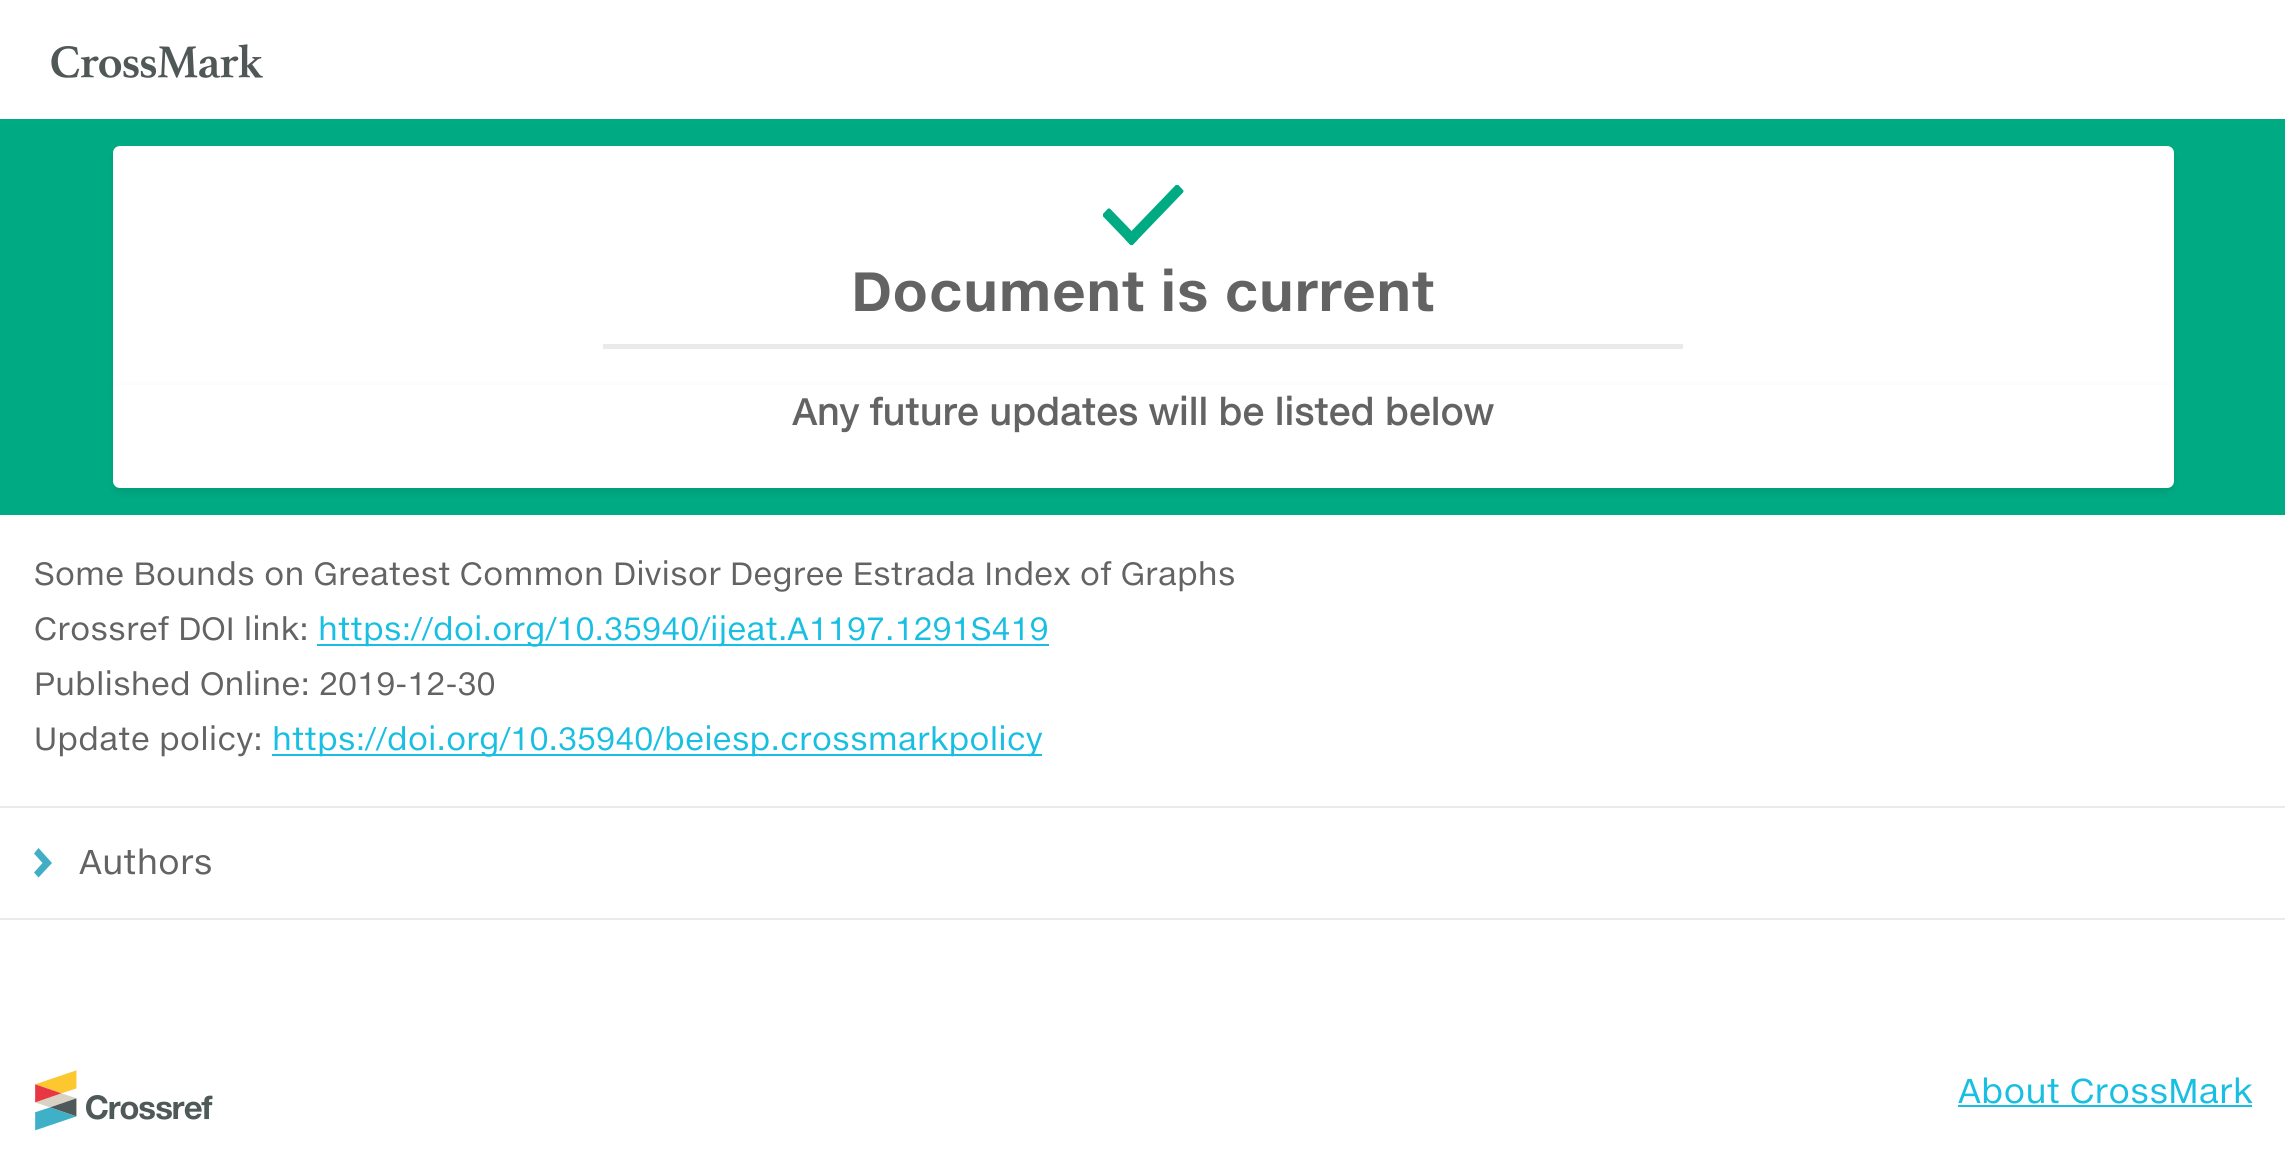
#include <cairo.h>
#include <math.h>
#include <stddef.h>

typedef struct { const char *family; double size; int italic, bold; unsigned color; } style_t;
static cairo_t *ctx;

static void ink(unsigned color) {
    cairo_set_source_rgb(ctx, (color >> 16) / 255.0, (color >> 8 & 255) / 255.0, (color & 255) / 255.0);
}

static void write(double x, double y, const char *s, const style_t *st) {
    cairo_select_font_face(ctx, st->family, st->italic ? CAIRO_FONT_SLANT_ITALIC : CAIRO_FONT_SLANT_NORMAL,
        st->bold ? CAIRO_FONT_WEIGHT_BOLD : CAIRO_FONT_WEIGHT_NORMAL);
    cairo_set_font_size(ctx, st->size);
    ink(st->color);
    cairo_move_to(ctx, x, y);
    cairo_show_text(ctx, s);
}

static void block(double x, double y, double w, double h, unsigned color) {
    ink(color);
    cairo_rectangle(ctx, x, y, w, h);
    cairo_fill(ctx);
}

static void round_path(double x, double y, double w, double h, double r) {
    cairo_new_sub_path(ctx);
    cairo_arc(ctx, x + w - r, y + h - r, r, 0, M_PI / 2);
    cairo_arc(ctx, x + r, y + h - r, r, M_PI / 2, M_PI);
    cairo_arc(ctx, x + r, y + r, r, M_PI, 1.5 * M_PI);
    cairo_arc(ctx, x + w - r, y + r, r, 1.5 * M_PI, 2 * M_PI);
    cairo_close_path(ctx);
}

static void blur_box(double x, double y, double w, double h, double r, double blur, double alpha) {
    cairo_push_group_with_content(ctx, CAIRO_CONTENT_ALPHA);
    cairo_set_operator(ctx, CAIRO_OPERATOR_SOURCE);
    for (int i = 15; i >= -15 && fmin(w, h) + blur * i / 3 > 0; i -= 2) {
        double e = blur * i / 6;
        cairo_set_source_rgba(ctx, 0, 0, 0, alpha * erfc((i - 1) / 8.5) / 2);
        round_path(x - e, y - e, w + 2 * e, h + 2 * e, fmax(0, fmin(r + e + blur * .6, fmin(w, h) / 2 + e)));
        cairo_fill(ctx);
    }
    cairo_pattern_t *soft = cairo_pop_group(ctx);
    cairo_mask(ctx, soft);
    cairo_pattern_destroy(soft);
}

static void paste(const char *path, double x, double y, double w, double h) {
    cairo_surface_t *image = cairo_image_surface_create_from_png(path);
    cairo_save(ctx);
    cairo_set_source_surface(ctx, image, x, y);
    cairo_rectangle(ctx, x, y, w, h);
    cairo_fill(ctx);
    cairo_restore(ctx);
    cairo_surface_destroy(image);
}

static const style_t s1 = {"Helvetica Neue", 54, 0, 1, 0x636363};
static const style_t s2 = {"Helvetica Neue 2", 36, 0, 1, 0x636363};
static const style_t s3 = {"Helvetica Neue", 31.5, 0, 0, 0x636363};
static const style_t s4 = {"Helvetica Neue", 31.5, 0, 0, 0x19bfe2};
static const style_t s5 = {"Helvetica Neue", 33.75, 0, 0, 0x636363};
static const style_t s6 = {"Helvetica Neue", 33.75, 0, 0, 0x19bfe2};

int main(void) {
    cairo_surface_t *surface = cairo_image_surface_create(CAIRO_FORMAT_RGB24, 2285, 1158);
    ctx = cairo_create(surface);
    cairo_font_options_t *options = cairo_font_options_create();
    cairo_font_options_set_hint_metrics(options, CAIRO_HINT_METRICS_OFF);
    cairo_font_options_set_hint_style(options, CAIRO_HINT_STYLE_NONE);
    cairo_set_font_options(ctx, options);
    cairo_set_miter_limit(ctx, 4);
    ink(0xffffff);
    cairo_paint(ctx);
    paste("pic1.png", 51, 44, 212, 34);
    block(0, 119, 2285, 396, 0x00ab84);
    ink(0x000000);
    blur_box(113, 151, 2061, 243, 7, 4.5, 0.09);
    ink(0xffffff);
    cairo_new_path(ctx);
    cairo_move_to(ctx, 120, 146);
    cairo_line_to(ctx, 2167, 146);
    cairo_curve_to(ctx, 2171, 146, 2174, 149, 2174, 153);
    cairo_line_to(ctx, 2174, 389);
    cairo_line_to(ctx, 113, 389);
    cairo_line_to(ctx, 113, 153);
    cairo_curve_to(ctx, 113, 149, 116, 146, 120, 146);
    cairo_close_path(ctx);
    cairo_fill(ctx);
    paste("pic2.png", 1103, 185, 81, 60);
    block(603, 344, 1080, 5, 0xeaeaea);
    write(851, 311, "Document is current", &s1);
    ink(0x000000);
    blur_box(113, 389, 2061, 104, 7, 4.5, 0.09);
    ink(0xffffff);
    cairo_new_path(ctx);
    cairo_move_to(ctx, 113, 385);
    cairo_line_to(ctx, 2174, 385);
    cairo_line_to(ctx, 2174, 481);
    cairo_curve_to(ctx, 2174, 485, 2171, 488, 2167, 488);
    cairo_line_to(ctx, 120, 488);
    cairo_curve_to(ctx, 116, 488, 113, 485, 113, 481);
    cairo_close_path(ctx);
    cairo_fill(ctx);
    write(792, 425, "Any future updates will be listed below", &s2);
    write(34, 585, "Some Bounds on Greatest Common Divisor Degree Estrada Index of Graphs", &s3);
    write(34, 640, "Crossref DOI link:", &s3);
    block(317, 644, 732, 2, 0x19bfe2);
    write(318, 640, "https://doi.org/10.35940/ijeat.A1197.1291S419", &s4);
    write(34, 695, "Published Online: 2019-12-30", &s3);
    write(34, 750, "Update policy:", &s3);
    block(272, 754, 770, 2, 0x19bfe2);
    write(272, 750, "https://doi.org/10.35940/beiesp.crossmarkpolicy", &s4);
    block(0, 806, 2285, 2, 0xeaeaea);
    block(0, 918, 2285, 2, 0xeaeaea);
    ink(0x41aec5);
    cairo_new_path(ctx);
    cairo_move_to(ctx, 34, 853.5);
    cairo_line_to(ctx, 42.5, 863);
    cairo_line_to(ctx, 34, 872.5);
    cairo_line_to(ctx, 38.5, 877.5);
    cairo_line_to(ctx, 52, 863);
    cairo_line_to(ctx, 38.5, 848);
    cairo_close_path(ctx);
    cairo_fill(ctx);
    write(79, 874, "Authors", &s5);
    paste("pic3.png", 35, 1070, 178, 61);
    write(1958, 1103, "About CrossMark", &s6);
    block(1958, 1105, 294, 2, 0x19bfe2);
    cairo_surface_write_to_png(surface, "screenshot.png");
    cairo_font_options_destroy(options);
    cairo_destroy(ctx);
    cairo_surface_destroy(surface);
    return 0;
}
